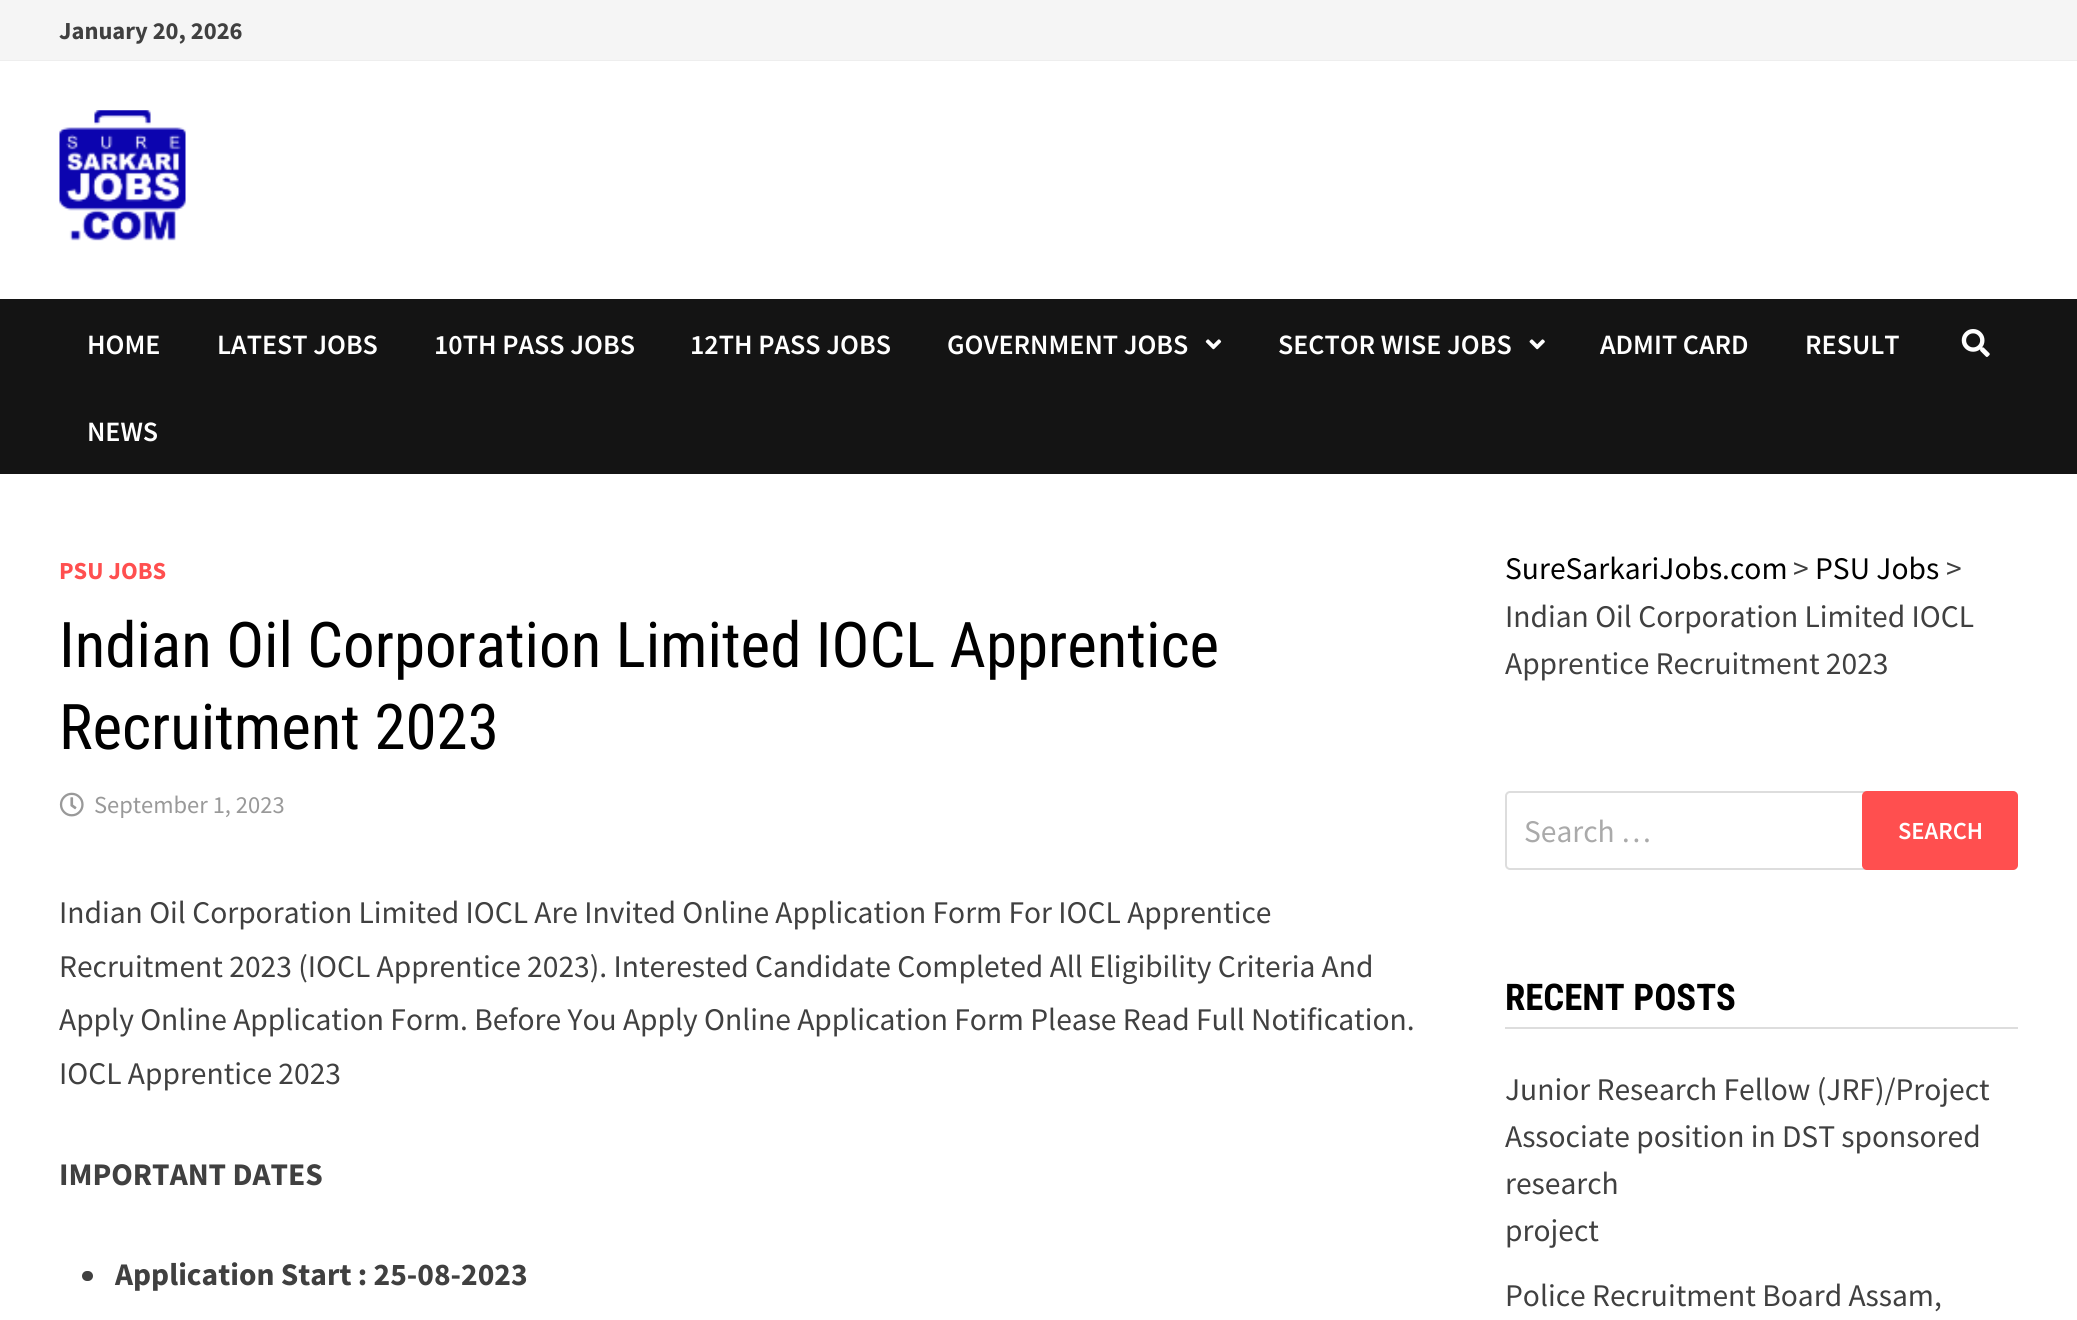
#include <cairo.h>
#include <math.h>
#include <stddef.h>

typedef struct { const char *family; double size; int italic, bold; unsigned color; } style_t;
static cairo_t *ctx;

static void ink(unsigned color) {
    cairo_set_source_rgb(ctx, (color >> 16) / 255.0, (color >> 8 & 255) / 255.0, (color & 255) / 255.0);
}

static void write(double x, double y, const char *s, const style_t *st) {
    cairo_select_font_face(ctx, st->family, st->italic ? CAIRO_FONT_SLANT_ITALIC : CAIRO_FONT_SLANT_NORMAL,
        st->bold ? CAIRO_FONT_WEIGHT_BOLD : CAIRO_FONT_WEIGHT_NORMAL);
    cairo_set_font_size(ctx, st->size);
    ink(st->color);
    cairo_move_to(ctx, x, y);
    cairo_show_text(ctx, s);
}

static void block(double x, double y, double w, double h, unsigned color) {
    ink(color);
    cairo_rectangle(ctx, x, y, w, h);
    cairo_fill(ctx);
}

static void round_path(double x, double y, double w, double h, double r) {
    cairo_new_sub_path(ctx);
    cairo_arc(ctx, x + w - r, y + h - r, r, 0, M_PI / 2);
    cairo_arc(ctx, x + r, y + h - r, r, M_PI / 2, M_PI);
    cairo_arc(ctx, x + r, y + r, r, M_PI, 1.5 * M_PI);
    cairo_arc(ctx, x + w - r, y + r, r, 1.5 * M_PI, 2 * M_PI);
    cairo_close_path(ctx);
}

static void paste(const char *path, double x, double y, double w, double h) {
    cairo_surface_t *image = cairo_image_surface_create_from_png(path);
    cairo_save(ctx);
    cairo_set_source_surface(ctx, image, x, y);
    cairo_rectangle(ctx, x, y, w, h);
    cairo_fill(ctx);
    cairo_restore(ctx);
    cairo_surface_destroy(image);
}

static const style_t s1 = {"Source Sans Pro", 24.5, 0, 1, 0x404040};
static const style_t s2 = {"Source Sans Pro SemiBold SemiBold", 28, 0, 0, 0xffffff};
static const style_t s3 = {"Source Sans Pro", 24.5, 0, 1, 0xff4f4f};
static const style_t s4 = {"Roboto Condensed", 63, 0, 0, 0x000000};
static const style_t s5 = {"Source Sans Pro", 24.5, 0, 0, 0x999999};
static const style_t s6 = {"Source Sans Pro", 31.5, 0, 0, 0x404040};
static const style_t s7 = {"Source Sans Pro", 31.5, 0, 1, 0x404040};
static const style_t s8 = {"Source Sans Pro", 31.5, 0, 0, 0x000000};
static const style_t s9 = {"Source Sans Pro", 31.5, 0, 0, 0xaaaaaa};
static const style_t s10 = {"Source Sans Pro SemiBold SemiBold", 24.5, 0, 0, 0xffffff};
static const style_t s11 = {"Roboto Condensed", 36.75, 0, 1, 0x000000};

int main(void) {
    cairo_surface_t *surface = cairo_image_surface_create(CAIRO_FORMAT_RGB24, 2077, 1320);
    ctx = cairo_create(surface);
    cairo_font_options_t *options = cairo_font_options_create();
    cairo_font_options_set_hint_metrics(options, CAIRO_HINT_METRICS_OFF);
    cairo_font_options_set_hint_style(options, CAIRO_HINT_STYLE_NONE);
    cairo_set_font_options(ctx, options);
    cairo_set_miter_limit(ctx, 4);
    ink(0xffffff);
    cairo_paint(ctx);
    block(0, 0, 2077, 60, 0xf5f5f5);
    block(0, 60, 2077, 1, 0xeeeeee);
    write(59, 39, "January 20, 2026", &s1);
    paste("pic1.png", 59, 110, 127, 131);
    block(0, 299, 2077, 175, 0x141414);
    write(87, 354, "HOME", &s2);
    write(217, 354, "LATEST JOBS", &s2);
    write(434, 354, "10TH PASS JOBS", &s2);
    write(690, 354, "12TH PASS JOBS", &s2);
    write(947, 354, "GOVERNMENT JOBS", &s2);
    paste("pic2.png", 1205, 339, 17, 11);
    write(1278, 354, "SECTOR WISE JOBS", &s2);
    paste("pic3.png", 1529, 339, 16, 11);
    write(1600, 354, "ADMIT CARD", &s2);
    write(1805, 354, "RESULT", &s2);
    write(87, 441, "NEWS", &s2);
    paste("pic4.png", 1961, 329, 29, 28);
    write(59, 579, "PSU JOBS", &s3);
    write(59, 667, "Indian Oil Corporation Limited IOCL Apprentice", &s4);
    write(59, 749, "Recruitment 2023", &s4);
    paste("pic5.png", 59, 792, 25, 25);
    write(94, 813, "September 1, 2023", &s5);
    write(59, 923, "Indian Oil Corporation Limited IOCL Are Invited Online Application Form For IOCL Apprentice", &s6);
    write(59, 977, "Recruitment 2023 (IOCL Apprentice 2023). Interested Candidate Completed All Eligibility Criteria And", &s6);
    write(59, 1030, "Apply Online Application Form. Before You Apply Online Application Form Please Read Full Notification.", &s6);
    write(59, 1084, "IOCL Apprentice 2023", &s6);
    write(59, 1185, "IMPORTANT DATES", &s7);
    round_path(82, 1271, 11, 10, 5);
    cairo_fill(ctx);
    write(115, 1285, "Application Start : 25-08-2023", &s7);
    write(1505, 579, "SureSarkariJobs.com", &s8);
    write(1793, 579, ">", &s6);
    write(1815, 579, "PSU Jobs", &s8);
    write(1946, 579, ">", &s6);
    write(1505, 627, "Indian Oil Corporation Limited IOCL", &s6);
    write(1505, 674, "Apprentice Recruitment 2023", &s6);
    round_path(1506, 792, 511, 77, 4);
    ink(0xdddddd);
    cairo_stroke(ctx);
    write(1524, 842, "Search …", &s9);
    ink(0xff4f4f);
    round_path(1862, 791, 156, 79, 5);
    cairo_fill(ctx);
    write(1898, 839, "SEARCH", &s10);
    block(1505, 1027, 513, 2, 0xdddddd);
    write(1505, 1010, "RECENT POSTS", &s11);
    write(1505, 1100, "Junior Research Fellow (JRF)/Project", &s6);
    write(1505, 1147, "Associate position in DST sponsored", &s6);
    write(1505, 1194, "research", &s6);
    write(1505, 1241, "project", &s6);
    write(1505, 1306, "Police Recruitment Board Assam,", &s6);
    cairo_surface_write_to_png(surface, "screenshot.png");
    cairo_font_options_destroy(options);
    cairo_destroy(ctx);
    cairo_surface_destroy(surface);
    return 0;
}
